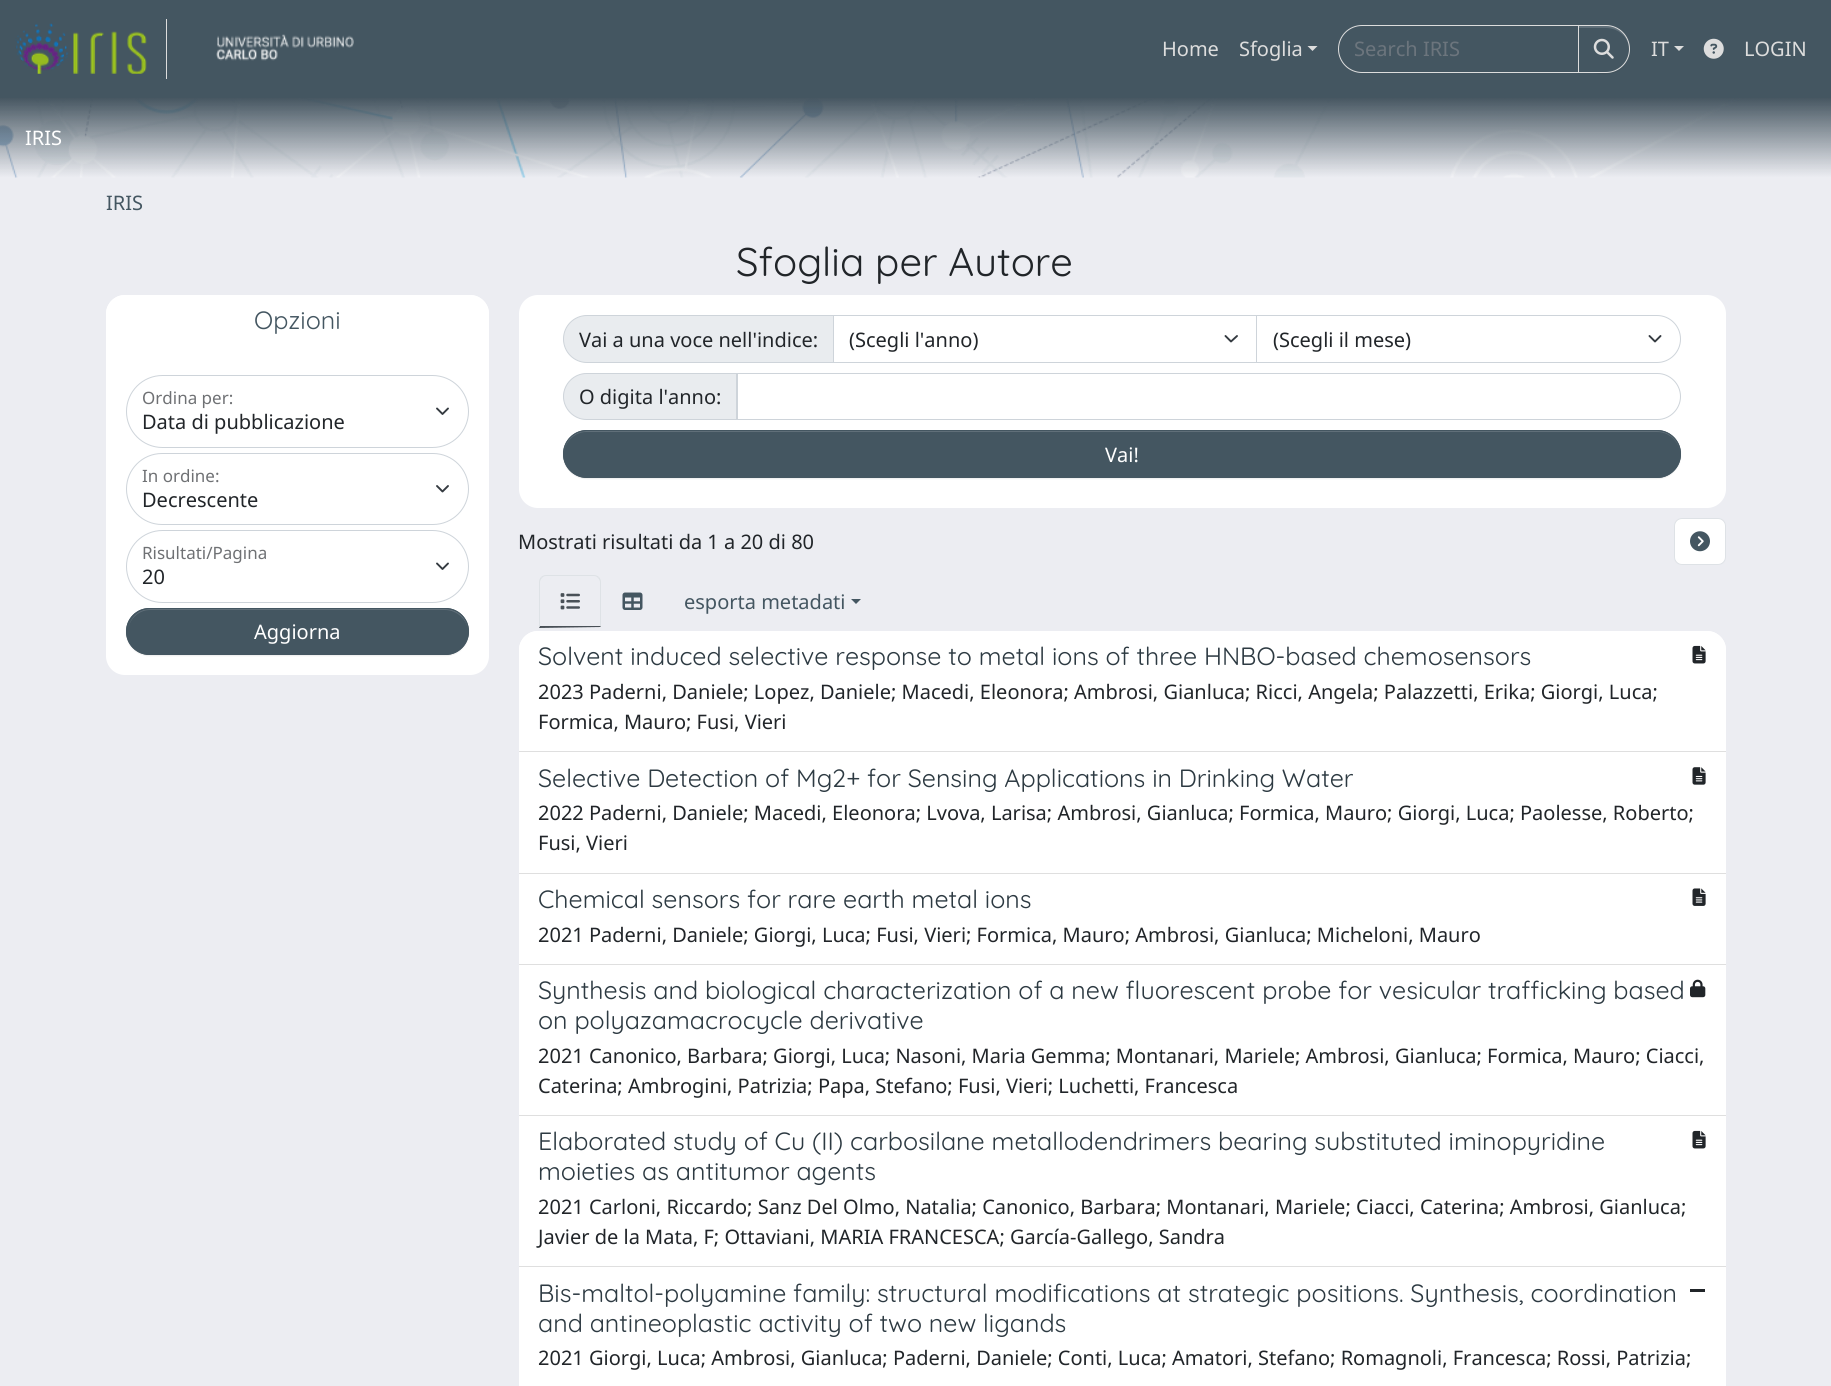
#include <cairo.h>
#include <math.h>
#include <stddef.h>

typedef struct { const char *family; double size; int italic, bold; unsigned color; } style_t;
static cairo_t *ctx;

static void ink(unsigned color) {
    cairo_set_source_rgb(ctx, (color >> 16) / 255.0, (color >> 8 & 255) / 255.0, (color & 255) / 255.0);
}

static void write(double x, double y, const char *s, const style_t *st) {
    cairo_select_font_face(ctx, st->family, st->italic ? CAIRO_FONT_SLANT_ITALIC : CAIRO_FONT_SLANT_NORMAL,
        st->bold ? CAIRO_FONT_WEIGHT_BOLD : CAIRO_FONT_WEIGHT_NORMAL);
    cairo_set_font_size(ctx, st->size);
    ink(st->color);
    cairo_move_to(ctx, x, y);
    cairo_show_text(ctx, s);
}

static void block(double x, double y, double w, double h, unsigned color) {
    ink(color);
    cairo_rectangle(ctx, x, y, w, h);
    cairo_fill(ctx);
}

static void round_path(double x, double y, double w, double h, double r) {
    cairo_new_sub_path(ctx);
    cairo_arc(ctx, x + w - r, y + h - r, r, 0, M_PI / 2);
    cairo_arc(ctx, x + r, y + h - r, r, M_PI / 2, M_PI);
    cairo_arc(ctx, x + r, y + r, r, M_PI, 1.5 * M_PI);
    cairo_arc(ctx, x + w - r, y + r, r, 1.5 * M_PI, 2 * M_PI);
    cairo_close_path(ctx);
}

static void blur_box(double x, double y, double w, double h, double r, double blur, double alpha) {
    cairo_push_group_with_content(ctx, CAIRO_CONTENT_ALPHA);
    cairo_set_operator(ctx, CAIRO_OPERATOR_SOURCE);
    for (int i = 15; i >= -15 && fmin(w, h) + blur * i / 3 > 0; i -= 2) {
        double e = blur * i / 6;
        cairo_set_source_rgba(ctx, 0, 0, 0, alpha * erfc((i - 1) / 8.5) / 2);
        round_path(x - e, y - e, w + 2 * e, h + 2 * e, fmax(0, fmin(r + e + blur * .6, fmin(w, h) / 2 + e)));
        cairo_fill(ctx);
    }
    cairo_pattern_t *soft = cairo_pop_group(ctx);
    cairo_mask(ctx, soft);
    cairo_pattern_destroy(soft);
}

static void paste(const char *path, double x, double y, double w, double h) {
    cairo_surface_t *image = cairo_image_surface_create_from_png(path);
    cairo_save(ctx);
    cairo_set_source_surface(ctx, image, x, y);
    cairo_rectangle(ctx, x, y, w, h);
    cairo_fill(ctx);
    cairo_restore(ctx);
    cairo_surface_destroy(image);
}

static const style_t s1 = {"Noto Sans", 20, 0, 0, 0xdddddd};
static const style_t s2 = {"Noto Sans", 20, 0, 0, 0x6c757d};
static const style_t s3 = {"Noto Sans", 20, 0, 0, 0xffffff};
static const style_t s4 = {"Noto Sans", 20, 0, 0, 0x445661};
static const style_t s5 = {"Quicksand", 40, 0, 0, 0x212529};
static const style_t s6 = {"Quicksand", 25, 0, 0, 0x445661};
static const style_t s7 = {"Noto Sans", 17, 0, 0, 0x6f7174};
static const style_t s8 = {"Noto Sans", 20, 0, 0, 0x212529};
static const style_t s9 = {"Quicksand", 25, 0, 0, 0x2d3a42};

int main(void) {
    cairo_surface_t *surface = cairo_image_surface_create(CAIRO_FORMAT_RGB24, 1831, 1386);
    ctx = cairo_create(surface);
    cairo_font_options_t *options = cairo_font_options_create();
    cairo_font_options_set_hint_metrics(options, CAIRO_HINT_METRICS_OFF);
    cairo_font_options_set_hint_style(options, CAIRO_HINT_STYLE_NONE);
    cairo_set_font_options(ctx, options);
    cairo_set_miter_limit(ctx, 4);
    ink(0xecedf2);
    cairo_paint(ctx);
    block(0, 0, 1831, 98, 0x445661);
    block(166, 19, 1, 60, 0xdddddd);
    paste("pic1.png", 15, 23, 132, 51);
    paste("pic2.png", 216, 34, 138, 27);
    write(1162, 56, "Home", &s1);
    write(1239, 56, "Sfoglia", &s1);
    cairo_new_path(ctx);
    cairo_move_to(ctx, 1307.5, 46);
    cairo_line_to(ctx, 1317.5, 46);
    cairo_line_to(ctx, 1312.5, 51);
    cairo_close_path(ctx);
    cairo_fill(ctx);
    cairo_new_path(ctx);
    cairo_move_to(ctx, 1362, 25.5);
    cairo_line_to(ctx, 1578.5, 25.5);
    cairo_line_to(ctx, 1578.5, 72.5);
    cairo_line_to(ctx, 1362, 72.5);
    cairo_curve_to(ctx, 1349, 72.5, 1338.5, 62, 1338.5, 49);
    cairo_curve_to(ctx, 1338.5, 36, 1349, 25.5, 1362, 25.5);
    cairo_close_path(ctx);
    cairo_set_line_width(ctx, 1);
    cairo_stroke(ctx);
    write(1354, 56, "Search IRIS", &s2);
    ink(0x000000);
    blur_box(1578, 26, 52, 48, 24, 0.5, 0.07);
    ink(0x445661);
    cairo_new_path(ctx);
    cairo_move_to(ctx, 1578, 25);
    cairo_line_to(ctx, 1606, 25);
    cairo_curve_to(ctx, 1619.5, 25, 1630, 35.5, 1630, 49);
    cairo_curve_to(ctx, 1630, 62.5, 1619.5, 73, 1606, 73);
    cairo_line_to(ctx, 1578, 73);
    cairo_close_path(ctx);
    cairo_fill(ctx);
    ink(0x606f79);
    cairo_new_path(ctx);
    cairo_move_to(ctx, 1579, 28);
    cairo_line_to(ctx, 1606, 28);
    cairo_curve_to(ctx, 1619, 28, 1629, 38, 1629, 49);
    cairo_line_to(ctx, 1629, 48);
    cairo_curve_to(ctx, 1629, 36, 1619, 26, 1606, 26);
    cairo_line_to(ctx, 1579, 26);
    cairo_close_path(ctx);
    cairo_fill(ctx);
    cairo_new_path(ctx);
    cairo_move_to(ctx, 1578.5, 25.5);
    cairo_line_to(ctx, 1606, 25.5);
    cairo_curve_to(ctx, 1619, 25.5, 1629.5, 36, 1629.5, 49);
    cairo_curve_to(ctx, 1629.5, 62, 1619, 72.5, 1606, 72.5);
    cairo_line_to(ctx, 1578.5, 72.5);
    cairo_close_path(ctx);
    ink(0xdddddd);
    cairo_stroke(ctx);
    paste("pic3.png", 1593, 38, 21, 21);
    write(1651, 56, "IT", &s1);
    cairo_new_path(ctx);
    cairo_move_to(ctx, 1674, 46);
    cairo_line_to(ctx, 1684, 46);
    cairo_line_to(ctx, 1679, 51);
    cairo_close_path(ctx);
    cairo_fill(ctx);
    paste("pic4.png", 1703, 38, 21, 21);
    write(1744, 56, "LOGIN", &s1);
    paste("pic5.png", 0, 98, 1831, 80);
    write(25, 145, "IRIS", &s3);
    write(106, 210, "IRIS", &s4);
    write(736, 276, "Sfoglia per Autore", &s5);
    ink(0xffffff);
    round_path(106, 295, 383, 380, 19);
    cairo_fill(ctx);
    cairo_new_path(ctx);
    cairo_move_to(ctx, 125, 295);
    cairo_line_to(ctx, 470, 295);
    cairo_curve_to(ctx, 480.5, 295, 489, 303.5, 489, 314);
    cairo_line_to(ctx, 489, 355);
    cairo_line_to(ctx, 106, 355);
    cairo_line_to(ctx, 106, 314);
    cairo_curve_to(ctx, 106, 303.5, 114.5, 295, 125, 295);
    cairo_close_path(ctx);
    cairo_fill(ctx);
    write(254, 329, "Opzioni", &s6);
    cairo_new_path(ctx);
    cairo_move_to(ctx, 437, 408.5);
    cairo_line_to(ctx, 442.5, 414);
    cairo_line_to(ctx, 448, 408.5);
    ink(0x343a40);
    cairo_set_line_width(ctx, 1.9);
    cairo_set_line_cap(ctx, CAIRO_LINE_CAP_ROUND);
    cairo_set_line_join(ctx, CAIRO_LINE_JOIN_ROUND);
    cairo_stroke(ctx);
    round_path(126.5, 375.5, 342, 72, 36);
    ink(0xced4da);
    cairo_set_line_width(ctx, 1);
    cairo_set_line_cap(ctx, CAIRO_LINE_CAP_BUTT);
    cairo_set_line_join(ctx, CAIRO_LINE_JOIN_MITER);
    cairo_stroke(ctx);
    write(142, 404, "Ordina per:", &s7);
    write(142, 429, "Data di pubblicazione", &s8);
    cairo_new_path(ctx);
    cairo_move_to(ctx, 437, 486);
    cairo_line_to(ctx, 442.5, 491.5);
    cairo_line_to(ctx, 448, 486);
    ink(0x343a40);
    cairo_set_line_width(ctx, 1.9);
    cairo_set_line_cap(ctx, CAIRO_LINE_CAP_ROUND);
    cairo_set_line_join(ctx, CAIRO_LINE_JOIN_ROUND);
    cairo_stroke(ctx);
    round_path(126.5, 453.5, 342, 71, 35.5);
    ink(0xced4da);
    cairo_set_line_width(ctx, 1);
    cairo_set_line_cap(ctx, CAIRO_LINE_CAP_BUTT);
    cairo_set_line_join(ctx, CAIRO_LINE_JOIN_MITER);
    cairo_stroke(ctx);
    write(142, 482, "In ordine:", &s7);
    write(142, 507, "Decrescente", &s8);
    cairo_new_path(ctx);
    cairo_move_to(ctx, 437, 563.5);
    cairo_line_to(ctx, 442.5, 569);
    cairo_line_to(ctx, 448, 563.5);
    ink(0x343a40);
    cairo_set_line_width(ctx, 1.9);
    cairo_set_line_cap(ctx, CAIRO_LINE_CAP_ROUND);
    cairo_set_line_join(ctx, CAIRO_LINE_JOIN_ROUND);
    cairo_stroke(ctx);
    round_path(126.5, 530.5, 342, 72, 36);
    ink(0xced4da);
    cairo_set_line_width(ctx, 1);
    cairo_set_line_cap(ctx, CAIRO_LINE_CAP_BUTT);
    cairo_set_line_join(ctx, CAIRO_LINE_JOIN_MITER);
    cairo_stroke(ctx);
    write(142, 559, "Risultati/Pagina", &s7);
    write(142, 584, "20", &s8);
    ink(0x000000);
    blur_box(126, 609, 343, 47, 23.5, 0.5, 0.07);
    ink(0x445661);
    round_path(126, 608, 343, 47, 23.5);
    cairo_fill(ctx);
    ink(0x606f79);
    cairo_new_path(ctx);
    cairo_move_to(ctx, 150, 610);
    cairo_line_to(ctx, 445, 610);
    cairo_curve_to(ctx, 457, 610, 468, 620, 468, 632);
    cairo_curve_to(ctx, 468, 619, 458, 609, 446, 609);
    cairo_line_to(ctx, 150, 609);
    cairo_curve_to(ctx, 138, 609, 128, 619, 128, 632);
    cairo_curve_to(ctx, 128, 620, 138, 610, 150, 610);
    cairo_close_path(ctx);
    cairo_fill(ctx);
    round_path(126.5, 608.5, 342, 46, 23);
    ink(0x445661);
    cairo_stroke(ctx);
    write(254, 639, "Aggiorna", &s3);
    round_path(519, 295, 1207, 213, 19);
    cairo_fill(ctx);
    ink(0xe9ecef);
    cairo_new_path(ctx);
    cairo_move_to(ctx, 587, 315.5);
    cairo_line_to(ctx, 833.5, 315.5);
    cairo_line_to(ctx, 833.5, 362.5);
    cairo_line_to(ctx, 587, 362.5);
    cairo_curve_to(ctx, 574, 362.5, 563.5, 352, 563.5, 339);
    cairo_curve_to(ctx, 563.5, 326, 574, 315.5, 587, 315.5);
    cairo_close_path(ctx);
    cairo_fill_preserve(ctx);
    ink(0xced4da);
    cairo_stroke(ctx);
    write(579, 347, "Vai a una voce nell'indice:", &s8);
    cairo_new_path(ctx);
    cairo_move_to(ctx, 1225.5, 336);
    cairo_line_to(ctx, 1231, 341.5);
    cairo_line_to(ctx, 1237, 336);
    ink(0x343a40);
    cairo_set_line_width(ctx, 1.9);
    cairo_set_line_cap(ctx, CAIRO_LINE_CAP_ROUND);
    cairo_set_line_join(ctx, CAIRO_LINE_JOIN_ROUND);
    cairo_stroke(ctx);
    cairo_rectangle(ctx, 833.5, 315.5, 424, 47);
    ink(0xced4da);
    cairo_set_line_width(ctx, 1);
    cairo_set_line_cap(ctx, CAIRO_LINE_CAP_BUTT);
    cairo_set_line_join(ctx, CAIRO_LINE_JOIN_MITER);
    cairo_stroke(ctx);
    write(849, 347, "(Scegli l'anno)", &s8);
    ink(0xffffff);
    cairo_new_path(ctx);
    cairo_move_to(ctx, 1256, 315);
    cairo_line_to(ctx, 1657, 315);
    cairo_curve_to(ctx, 1670.5, 315, 1681, 325.5, 1681, 339);
    cairo_curve_to(ctx, 1681, 352.5, 1670.5, 363, 1657, 363);
    cairo_line_to(ctx, 1256, 363);
    cairo_close_path(ctx);
    cairo_fill(ctx);
    cairo_new_path(ctx);
    cairo_move_to(ctx, 1649.5, 336);
    cairo_line_to(ctx, 1655, 341.5);
    cairo_line_to(ctx, 1660.5, 336);
    ink(0x343a40);
    cairo_set_line_width(ctx, 1.9);
    cairo_set_line_cap(ctx, CAIRO_LINE_CAP_ROUND);
    cairo_set_line_join(ctx, CAIRO_LINE_JOIN_ROUND);
    cairo_stroke(ctx);
    cairo_new_path(ctx);
    cairo_move_to(ctx, 1256.5, 315.5);
    cairo_line_to(ctx, 1657, 315.5);
    cairo_curve_to(ctx, 1670, 315.5, 1680.5, 326, 1680.5, 339);
    cairo_curve_to(ctx, 1680.5, 352, 1670, 362.5, 1657, 362.5);
    cairo_line_to(ctx, 1256.5, 362.5);
    cairo_close_path(ctx);
    ink(0xced4da);
    cairo_set_line_width(ctx, 1);
    cairo_set_line_cap(ctx, CAIRO_LINE_CAP_BUTT);
    cairo_set_line_join(ctx, CAIRO_LINE_JOIN_MITER);
    cairo_stroke(ctx);
    write(1273, 347, "(Scegli il mese)", &s8);
    ink(0xe9ecef);
    cairo_new_path(ctx);
    cairo_move_to(ctx, 586.5, 373.5);
    cairo_line_to(ctx, 737.5, 373.5);
    cairo_line_to(ctx, 737.5, 419.5);
    cairo_line_to(ctx, 586.5, 419.5);
    cairo_curve_to(ctx, 574, 419.5, 563.5, 409, 563.5, 396.5);
    cairo_curve_to(ctx, 563.5, 384, 574, 373.5, 586.5, 373.5);
    cairo_close_path(ctx);
    cairo_fill_preserve(ctx);
    ink(0xced4da);
    cairo_stroke(ctx);
    write(579, 404, "O digita l'anno:", &s8);
    cairo_new_path(ctx);
    cairo_move_to(ctx, 736.5, 373.5);
    cairo_line_to(ctx, 1657.5, 373.5);
    cairo_curve_to(ctx, 1670, 373.5, 1680.5, 384, 1680.5, 396.5);
    cairo_curve_to(ctx, 1680.5, 409, 1670, 419.5, 1657.5, 419.5);
    cairo_line_to(ctx, 736.5, 419.5);
    cairo_close_path(ctx);
    ink(0xced4da);
    cairo_stroke(ctx);
    ink(0x000000);
    blur_box(563, 431, 1118, 48, 24, 0.5, 0.07);
    ink(0x445661);
    round_path(563, 430, 1118, 48, 24);
    cairo_fill(ctx);
    ink(0x606f79);
    cairo_new_path(ctx);
    cairo_move_to(ctx, 586, 432);
    cairo_line_to(ctx, 1658, 432);
    cairo_curve_to(ctx, 1670, 432, 1680, 443, 1680, 454);
    cairo_curve_to(ctx, 1680, 442, 1670, 431, 1658, 431);
    cairo_line_to(ctx, 586, 431);
    cairo_curve_to(ctx, 579, 431, 572, 435, 568, 441);
    cairo_curve_to(ctx, 565, 445, 564, 450, 564, 454);
    cairo_curve_to(ctx, 564, 443, 574, 432, 586, 432);
    cairo_close_path(ctx);
    cairo_fill(ctx);
    round_path(563.5, 430.5, 1117, 47, 23.5);
    ink(0x445661);
    cairo_stroke(ctx);
    write(1105, 462, "Vai!", &s3);
    write(518, 549, "Mostrati risultati da 1 a 20 di 80", &s8);
    ink(0xffffff);
    round_path(1674.5, 518.5, 51, 46, 7.5);
    cairo_fill_preserve(ctx);
    ink(0xdee2e6);
    cairo_stroke(ctx);
    paste("pic6.png", 1690, 531, 20, 21);
    cairo_new_path(ctx);
    cairo_move_to(ctx, 546, 575);
    cairo_curve_to(ctx, 544, 575, 542, 576, 541, 577);
    cairo_line_to(ctx, 542, 578);
    cairo_curve_to(ctx, 543, 577, 544, 576, 546, 576);
    cairo_line_to(ctx, 594, 576);
    cairo_curve_to(ctx, 596, 576, 597, 577, 598, 578);
    cairo_line_to(ctx, 599, 577);
    cairo_curve_to(ctx, 598, 576, 596, 575, 594, 575);
    cairo_close_path(ctx);
    cairo_fill(ctx);
    cairo_new_path(ctx);
    cairo_move_to(ctx, 599, 577);
    cairo_curve_to(ctx, 600, 578, 601, 580, 601, 582);
    cairo_line_to(ctx, 601, 627);
    cairo_line_to(ctx, 600, 626);
    cairo_line_to(ctx, 600, 582);
    cairo_curve_to(ctx, 600, 581, 599, 579, 598, 578);
    cairo_close_path(ctx);
    cairo_fill(ctx);
    ink(0x495057);
    cairo_new_path(ctx);
    cairo_move_to(ctx, 539, 628);
    cairo_line_to(ctx, 540, 626);
    cairo_line_to(ctx, 600, 626);
    cairo_line_to(ctx, 601, 627);
    cairo_close_path(ctx);
    cairo_fill(ctx);
    ink(0xdee2e6);
    cairo_new_path(ctx);
    cairo_move_to(ctx, 541, 577);
    cairo_curve_to(ctx, 540, 578, 539, 580, 539, 582);
    cairo_line_to(ctx, 539, 627);
    cairo_line_to(ctx, 540, 626);
    cairo_line_to(ctx, 540, 582);
    cairo_curve_to(ctx, 540, 581, 541, 579, 542, 578);
    cairo_close_path(ctx);
    cairo_fill(ctx);
    paste("pic7.png", 560, 593, 20, 17);
    paste("pic8.png", 622, 592, 21, 18);
    write(684, 609, "esporta metadati", &s4);
    cairo_new_path(ctx);
    cairo_move_to(ctx, 851, 599);
    cairo_line_to(ctx, 861, 599);
    cairo_line_to(ctx, 856, 604);
    cairo_close_path(ctx);
    cairo_fill(ctx);
    ink(0xffffff);
    round_path(519, 631, 1207, 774, 19);
    cairo_fill(ctx);
    cairo_new_path(ctx);
    cairo_move_to(ctx, 538, 631);
    cairo_line_to(ctx, 1707, 631);
    cairo_curve_to(ctx, 1717.5, 631, 1726, 639.5, 1726, 650);
    cairo_line_to(ctx, 1726, 753);
    cairo_line_to(ctx, 519, 753);
    cairo_line_to(ctx, 519, 650);
    cairo_curve_to(ctx, 519, 639.5, 527.5, 631, 538, 631);
    cairo_close_path(ctx);
    cairo_fill(ctx);
    block(519, 751, 1207, 1, 0xdfdfdf);
    write(538, 665, "Solvent induced selective response to metal ions of three HNBO-based chemosensors", &s9);
    paste("pic9.png", 1692, 645, 14, 19);
    write(538, 699, "2023 Paderni, Daniele; Lopez, Daniele; Macedi, Eleonora; Ambrosi, Gianluca; Ricci, Angela; Palazzetti, Erika; Giorgi, Luca;", &s8);
    write(538, 729, "Formica, Mauro; Fusi, Vieri", &s8);
    block(519, 873, 1207, 1, 0xdfdfdf);
    write(538, 787, "Selective Detection of Mg2+ for Sensing Applications in Drinking Water", &s9);
    paste("pic10.png", 1692, 767, 14, 18);
    write(538, 820, "2022 Paderni, Daniele; Macedi, Eleonora; Lvova, Larisa; Ambrosi, Gianluca; Formica, Mauro; Giorgi, Luca; Paolesse, Roberto;", &s8);
    write(538, 850, "Fusi, Vieri", &s8);
    block(519, 964, 1207, 1, 0xdfdfdf);
    write(538, 908, "Chemical sensors for rare earth metal ions", &s9);
    paste("pic11.png", 1692, 888, 14, 18);
    write(538, 942, "2021 Paderni, Daniele; Giorgi, Luca; Fusi, Vieri; Formica, Mauro; Ambrosi, Gianluca; Micheloni, Mauro", &s8);
    block(519, 1115, 1207, 1, 0xdfdfdf);
    write(538, 999, "Synthesis and biological characterization of a new fluorescent probe for vesicular trafficking based", &s9);
    write(538, 1029, "on polyazamacrocycle derivative", &s9);
    paste("pic12.png", 1690, 979, 16, 19);
    write(538, 1063, "2021 Canonico, Barbara; Giorgi, Luca; Nasoni, Maria Gemma; Montanari, Mariele; Ambrosi, Gianluca; Formica, Mauro; Ciacci,", &s8);
    write(538, 1093, "Caterina; Ambrogini, Patrizia; Papa, Stefano; Fusi, Vieri; Luchetti, Francesca", &s8);
    block(519, 1266, 1207, 1, 0xdfdfdf);
    write(538, 1150, "Elaborated study of Cu (II) carbosilane metallodendrimers bearing substituted iminopyridine", &s9);
    write(538, 1180, "moieties as antitumor agents", &s9);
    paste("pic9.png", 1692, 1130, 14, 19);
    write(538, 1214, "2021 Carloni, Riccardo; Sanz Del Olmo, Natalia; Canonico, Barbara; Montanari, Mariele; Ciacci, Caterina; Ambrosi, Gianluca;", &s8);
    write(538, 1244, "Javier de la Mata, F; Ottaviani, MARIA FRANCESCA; García-Gallego, Sandra", &s8);
    write(538, 1302, "Bis-maltol-polyamine family: structural modifications at strategic positions. Synthesis, coordination", &s9);
    write(538, 1332, "and antineoplastic activity of two new ligands", &s9);
    block(1690, 1289, 15, 3, 0x212529);
    write(538, 1365, "2021 Giorgi, Luca; Ambrosi, Gianluca; Paderni, Daniele; Conti, Luca; Amatori, Stefano; Romagnoli, Francesca; Rossi, Patrizia;", &s8);
    cairo_surface_write_to_png(surface, "screenshot.png");
    cairo_font_options_destroy(options);
    cairo_destroy(ctx);
    cairo_surface_destroy(surface);
    return 0;
}
